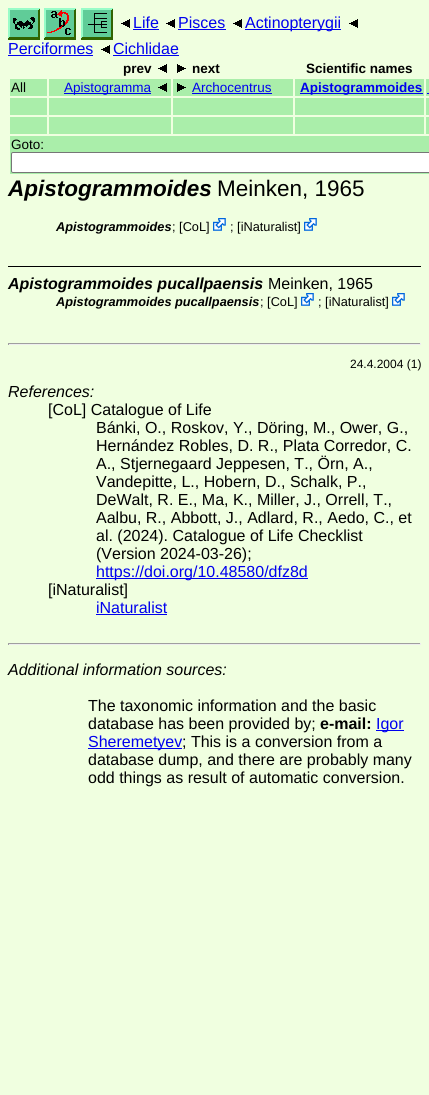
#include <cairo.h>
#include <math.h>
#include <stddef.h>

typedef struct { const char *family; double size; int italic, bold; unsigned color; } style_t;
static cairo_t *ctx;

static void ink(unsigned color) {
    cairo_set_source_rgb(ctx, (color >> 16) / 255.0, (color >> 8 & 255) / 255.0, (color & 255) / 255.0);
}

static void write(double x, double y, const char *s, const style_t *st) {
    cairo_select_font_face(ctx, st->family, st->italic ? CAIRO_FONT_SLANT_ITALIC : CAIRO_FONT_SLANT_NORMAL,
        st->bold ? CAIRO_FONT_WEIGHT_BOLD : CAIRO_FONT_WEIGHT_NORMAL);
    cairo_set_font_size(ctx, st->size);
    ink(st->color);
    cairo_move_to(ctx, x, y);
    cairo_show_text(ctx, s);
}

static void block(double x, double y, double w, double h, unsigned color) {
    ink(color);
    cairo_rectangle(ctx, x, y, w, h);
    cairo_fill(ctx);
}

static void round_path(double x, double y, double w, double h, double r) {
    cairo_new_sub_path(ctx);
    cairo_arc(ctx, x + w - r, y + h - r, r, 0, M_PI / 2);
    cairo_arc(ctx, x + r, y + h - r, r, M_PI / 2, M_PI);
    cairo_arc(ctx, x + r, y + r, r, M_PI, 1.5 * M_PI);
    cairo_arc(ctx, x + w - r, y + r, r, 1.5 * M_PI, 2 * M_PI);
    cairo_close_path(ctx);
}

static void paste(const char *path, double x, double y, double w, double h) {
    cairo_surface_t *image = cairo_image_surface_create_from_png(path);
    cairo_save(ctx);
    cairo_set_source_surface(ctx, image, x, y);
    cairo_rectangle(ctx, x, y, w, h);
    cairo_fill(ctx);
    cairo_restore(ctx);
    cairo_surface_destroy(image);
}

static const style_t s1 = {"Liberation Sans", 16, 0, 0, 0x0000ee};
static const style_t s2 = {"Liberation Sans", 13.5, 0, 1, 0x000000};
static const style_t s3 = {"Liberation Sans", 13.5, 0, 0, 0x000000};
static const style_t s4 = {"Liberation Sans", 13.5, 0, 0, 0x0000ee};
static const style_t s5 = {"Liberation Sans", 13.5, 0, 1, 0x0000ee};
static const style_t s6 = {"Liberation Sans", 22.5, 1, 1, 0x000000};
static const style_t s7 = {"Liberation Sans", 22.5, 0, 0, 0x000000};
static const style_t s8 = {"Liberation Sans", 12.75, 1, 1, 0x000000};
static const style_t s9 = {"Liberation Sans", 12.75, 0, 0, 0x000000};
static const style_t s10 = {"Liberation Sans", 16, 1, 1, 0x000000};
static const style_t s11 = {"Liberation Sans", 16, 0, 0, 0x000000};
static const style_t s12 = {"Liberation Sans", 12, 0, 0, 0x000000};
static const style_t s13 = {"Liberation Sans", 16, 1, 0, 0x000000};
static const style_t s14 = {"Liberation Sans", 16, 0, 1, 0x000000};

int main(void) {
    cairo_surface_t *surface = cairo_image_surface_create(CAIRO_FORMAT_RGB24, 429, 1095);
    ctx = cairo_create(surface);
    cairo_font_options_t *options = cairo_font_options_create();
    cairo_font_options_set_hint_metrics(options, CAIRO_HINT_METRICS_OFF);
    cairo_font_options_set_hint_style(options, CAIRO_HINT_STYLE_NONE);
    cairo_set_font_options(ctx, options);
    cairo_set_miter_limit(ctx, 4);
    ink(0xf0ffe0);
    cairo_paint(ctx);
    paste("pic1.png", 8, 8, 32, 32);
    paste("pic2.png", 44, 8, 32, 32);
    paste("pic3.png", 81, 8, 32, 32);
    paste("pic4.png", 121, 19, 9, 9);
    write(133, 28, "Life", &s1);
    block(133, 29, 26, 1, 0x0000ee);
    paste("pic4.png", 166, 19, 9, 9);
    write(178, 28, "Pisces", &s1);
    block(178, 29, 48, 1, 0x0000ee);
    paste("pic4.png", 233, 19, 9, 9);
    block(245, 29, 96, 1, 0x0000ee);
    write(245, 28, "Actinopterygii", &s1);
    paste("pic4.png", 349, 19, 9, 9);
    write(8, 54, "Perciformes", &s1);
    block(8, 55, 85, 1, 0x0000ee);
    paste("pic4.png", 101, 45, 9, 9);
    write(113, 54, "Cichlidae", &s1);
    block(113, 55, 66, 1, 0x0000ee);
    write(123, 73, "prev", &s2);
    paste("pic4.png", 158, 64, 9, 9);
    paste("pic5.png", 177, 64, 9, 9);
    write(192, 73, "next", &s2);
    write(306, 73, "Scientific names", &s2);
    block(10, 79, 37, 17, 0xaaeeaa);
    write(11, 92, "All", &s3);
    block(49, 79, 122, 17, 0xaaeeaa);
    block(64, 93, 87, 1, 0x0000ee);
    write(64, 92, "Apistogramma", &s4);
    paste("pic6.png", 158, 83, 9, 9);
    block(173, 79, 120, 17, 0xaaeeaa);
    paste("pic7.png", 177, 83, 9, 9);
    write(192, 92, "Archocentrus", &s4);
    block(192, 93, 80, 1, 0x0000ee);
    block(295, 79, 129, 17, 0xaaeeaa);
    block(300, 93, 123, 1, 0x0000ee);
    write(300, 92, "Apistogrammoides", &s5);
    block(426, 79, 3, 17, 0xaaeeaa);
    block(427, 93, 2, 1, 0x0000ee);
    block(10, 98, 37, 17, 0xaaeeaa);
    block(49, 98, 122, 17, 0xaaeeaa);
    block(173, 98, 120, 17, 0xaaeeaa);
    block(295, 98, 129, 17, 0xaaeeaa);
    block(426, 98, 3, 17, 0xaaeeaa);
    block(10, 117, 37, 17, 0xaaeeaa);
    block(49, 117, 122, 17, 0xaaeeaa);
    block(173, 117, 120, 17, 0xaaeeaa);
    block(295, 117, 129, 17, 0xaaeeaa);
    block(426, 117, 3, 17, 0xaaeeaa);
    block(10, 136, 419, 38, 0xaaeeaa);
    write(11, 149, "Goto:", &s3);
    ink(0xffffff);
    round_path(11.5, 152.5, 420, 20, 1.5);
    cairo_fill_preserve(ctx);
    ink(0x767676);
    cairo_set_line_width(ctx, 1);
    cairo_stroke(ctx);
    write(8, 196, "Apistogrammoides", &s6);
    write(217, 196, "Meinken, 1965", &s7);
    write(56, 231, "Apistogrammoides", &s8);
    write(172, 231, "; [CoL]", &s9);
    paste("pic8.png", 213, 218, 13, 13);
    write(230, 231, "; [iNaturalist]", &s9);
    paste("pic8.png", 304, 218, 13, 13);
    block(8, 266, 413, 1, 0x000000);
    write(8, 289, "Apistogrammoides pucallpaensis", &s10);
    write(268, 289, "Meinken, 1965", &s11);
    write(56, 306, "Apistogrammoides pucallpaensis", &s8);
    write(260, 306, "; [CoL]", &s9);
    paste("pic8.png", 301, 293, 13, 13);
    write(318, 306, "; [iNaturalist]", &s9);
    paste("pic8.png", 392, 293, 13, 13);
    block(8, 343, 413, 1, 0x9f9f9f);
    block(420, 343, 1, 2, 0xeeeeee);
    block(8, 344, 413, 1, 0xeeeeee);
    block(8, 343, 1, 2, 0x9f9f9f);
    write(350, 368, "24.4.2004 (1)", &s12);
    write(8, 397, "References:", &s13);
    write(48, 415, "[CoL] Catalogue of Life", &s11);
    write(96, 433, "Bánki, O., Roskov, Y., Döring, M., Ower, G.,", &s11);
    write(96, 451, "Hernández Robles, D. R., Plata Corredor, C.", &s11);
    write(96, 469, "A., Stjernegaard Jeppesen, T., Örn, A.,", &s11);
    write(96, 487, "Vandepitte, L., Hobern, D., Schalk, P.,", &s11);
    write(96, 505, "DeWalt, R. E., Ma, K., Miller, J., Orrell, T.,", &s11);
    write(96, 523, "Aalbu, R., Abbott, J., Adlard, R., Aedo, C., et", &s11);
    write(96, 541, "al. (2024). Catalogue of Life Checklist", &s11);
    write(96, 559, "(Version 2024-03-26);", &s11);
    block(96, 578, 212, 1, 0x0000ee);
    write(96, 577, "https://doi.org/10.48580/dfz8d", &s1);
    write(48, 595, "[iNaturalist]", &s11);
    write(96, 613, "iNaturalist", &s1);
    block(96, 614, 71, 1, 0x0000ee);
    block(8, 643, 413, 1, 0x9f9f9f);
    block(420, 643, 1, 2, 0xeeeeee);
    block(8, 644, 413, 1, 0xeeeeee);
    block(8, 643, 1, 2, 0x9f9f9f);
    write(8, 675, "Additional information sources:", &s13);
    write(88, 711, "The taxonomic information and the basic", &s11);
    write(88, 729, "database has been provided by;", &s11);
    write(320, 729, "e-mail:", &s14);
    block(376, 730, 28, 1, 0x0000ee);
    write(376, 729, "Igor", &s1);
    block(88, 748, 94, 1, 0x0000ee);
    write(88, 747, "Sheremetyev", &s1);
    write(182, 747, "; This is a conversion from a", &s11);
    write(88, 765, "database dump, and there are probably many", &s11);
    write(88, 783, "odd things as result of automatic conversion.", &s11);
    cairo_surface_write_to_png(surface, "screenshot.png");
    cairo_font_options_destroy(options);
    cairo_destroy(ctx);
    cairo_surface_destroy(surface);
    return 0;
}
